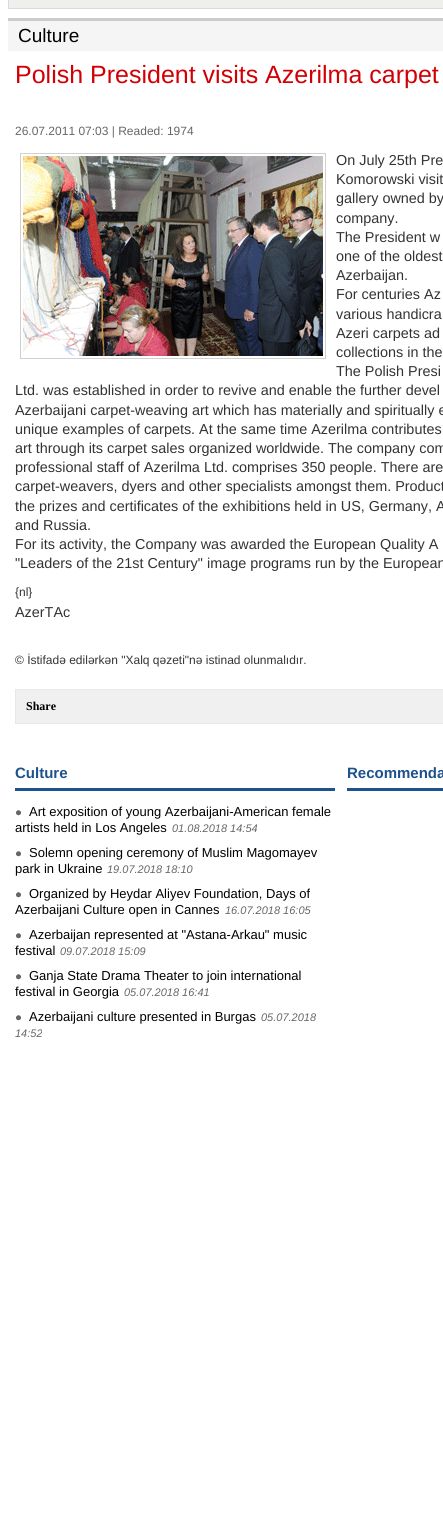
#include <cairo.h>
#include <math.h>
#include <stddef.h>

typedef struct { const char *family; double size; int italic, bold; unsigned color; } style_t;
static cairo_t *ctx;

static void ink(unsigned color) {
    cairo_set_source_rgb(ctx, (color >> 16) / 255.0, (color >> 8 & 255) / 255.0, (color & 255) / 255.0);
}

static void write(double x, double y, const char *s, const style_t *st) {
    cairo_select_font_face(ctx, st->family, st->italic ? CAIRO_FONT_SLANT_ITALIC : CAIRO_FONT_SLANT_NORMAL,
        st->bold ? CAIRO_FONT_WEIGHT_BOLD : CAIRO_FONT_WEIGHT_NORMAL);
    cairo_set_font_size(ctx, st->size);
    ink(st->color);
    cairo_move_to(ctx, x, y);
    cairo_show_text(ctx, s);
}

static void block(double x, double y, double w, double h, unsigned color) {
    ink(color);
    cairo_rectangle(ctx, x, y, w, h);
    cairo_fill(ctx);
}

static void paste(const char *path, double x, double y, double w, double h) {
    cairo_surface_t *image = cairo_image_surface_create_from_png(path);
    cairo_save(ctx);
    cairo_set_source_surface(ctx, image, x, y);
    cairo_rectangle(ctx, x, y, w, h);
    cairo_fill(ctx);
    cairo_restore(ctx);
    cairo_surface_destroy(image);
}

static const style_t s1 = {"Liberation Sans", 19, 0, 0, 0x000000};
static const style_t s2 = {"Liberation Sans", 25, 0, 0, 0xd10005};
static const style_t s3 = {"Liberation Sans", 12, 0, 0, 0x666666};
static const style_t s4 = {"Liberation Sans", 14.4, 0, 0, 0x333333};
static const style_t s5 = {"Liberation Sans", 12, 0, 0, 0x333333};
static const style_t s6 = {"Liberation Serif", 12, 0, 1, 0x000000};
static const style_t s7 = {"Liberation Sans", 15, 0, 1, 0x1d528c};
static const style_t s8 = {"Liberation Sans", 13, 0, 0, 0x000000};
static const style_t s9 = {"Liberation Sans", 11, 1, 0, 0x666666};

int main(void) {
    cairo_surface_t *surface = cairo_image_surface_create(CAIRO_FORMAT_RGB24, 443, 1525);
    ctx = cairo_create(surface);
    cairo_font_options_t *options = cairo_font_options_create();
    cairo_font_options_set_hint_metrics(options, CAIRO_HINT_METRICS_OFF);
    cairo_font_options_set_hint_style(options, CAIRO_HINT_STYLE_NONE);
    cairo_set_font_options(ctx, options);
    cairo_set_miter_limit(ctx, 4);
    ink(0xffffff);
    cairo_paint(ctx);
    ink(0xefefee);
    cairo_rectangle(ctx, 8.5, -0.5, 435, 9);
    cairo_fill_preserve(ctx);
    ink(0xdbdbdb);
    cairo_set_line_width(ctx, 1);
    cairo_stroke(ctx);
    block(8, 21, 435, 30, 0xf5f5f5);
    block(8, 18, 435, 3, 0xcccccc);
    write(18, 42, "Culture", &s1);
    write(15, 83, "Polish President visits Azerilma carpet", &s2);
    write(15, 135, "26.07.2011 07:03 | Readed: 1974", &s3);
    cairo_rectangle(ctx, 20.5, 153.5, 305, 205);
    ink(0xd0d0d0);
    cairo_stroke(ctx);
    paste("pic1.png", 23, 156, 300, 200);
    write(336, 165, "On July 25th Pre", &s4);
    write(336, 184, "Komorowski visit", &s4);
    write(336, 203, "gallery owned by", &s4);
    write(336, 223, "company.", &s4);
    write(336, 242, "The President w", &s4);
    write(336, 261, "one of the oldest", &s4);
    write(336, 280, "Azerbaijan.", &s4);
    write(336, 299, "For centuries Az", &s4);
    write(336, 319, "various handicra", &s4);
    write(336, 338, "Azeri carpets ad", &s4);
    write(336, 357, "collections in the", &s4);
    write(336, 376, "The Polish Presi", &s4);
    write(15, 395, "Ltd. was established in order to revive and enable the further devel", &s4);
    write(15, 415, "Azerbaijani carpet-weaving art which has materially and spiritually e", &s4);
    write(15, 434, "unique examples of carpets. At the same time Azerilma contributes", &s4);
    write(15, 453, "art through its carpet sales organized worldwide. The company com", &s4);
    write(15, 472, "professional staff of Azerilma Ltd. comprises 350 people. There are", &s4);
    write(15, 491, "carpet-weavers, dyers and other specialists amongst them. Product", &s4);
    write(15, 511, "the prizes and certificates of the exhibitions held in US, Germany, A", &s4);
    write(15, 530, "and Russia.", &s4);
    write(15, 549, "For its activity, the Company was awarded the European Quality A", &s4);
    write(15, 568, "\"Leaders of the 21st Century\" image programs run by the European", &s4);
    write(15, 596, "{nl}", &s5);
    write(15, 617, "AzerTAc", &s4);
    write(15, 664, "© İstifadə edilərkən \"Xalq qəzeti\"nə istinad olunmalıdır.", &s5);
    ink(0xf0f0f0);
    cairo_rectangle(ctx, 15.5, 689.5, 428, 34);
    cairo_fill_preserve(ctx);
    ink(0xe8e8e8);
    cairo_stroke(ctx);
    write(26, 710, "Share", &s6);
    block(15, 788, 320, 3, 0x1d528c);
    write(15, 778, "Culture", &s7);
    paste("pic2.png", 16, 810, 5, 6);
    write(29, 816, "Art exposition of young Azerbaijani-American female", &s8);
    write(15, 832, "artists held in Los Angeles", &s8);
    write(172, 832, "01.08.2018 14:54", &s9);
    paste("pic2.png", 16, 851, 5, 6);
    write(29, 857, "Solemn opening ceremony of Muslim Magomayev", &s8);
    write(15, 873, "park in Ukraine", &s8);
    write(107, 873, "19.07.2018 18:10", &s9);
    paste("pic2.png", 16, 892, 5, 6);
    write(29, 898, "Organized by Heydar Aliyev Foundation, Days of", &s8);
    write(15, 914, "Azerbaijani Culture open in Cannes", &s8);
    write(225, 914, "16.07.2018 16:05", &s9);
    paste("pic2.png", 16, 933, 5, 6);
    write(29, 939, "Azerbaijan represented at \"Astana-Arkau\" music", &s8);
    write(15, 955, "festival", &s8);
    write(60, 955, "09.07.2018 15:09", &s9);
    paste("pic2.png", 16, 974, 5, 6);
    write(29, 980, "Ganja State Drama Theater to join international", &s8);
    write(15, 996, "festival in Georgia", &s8);
    write(124, 996, "05.07.2018 16:41", &s9);
    paste("pic2.png", 16, 1015, 5, 6);
    write(29, 1021, "Azerbaijani culture presented in Burgas", &s8);
    write(261, 1021, "05.07.2018", &s9);
    write(15, 1037, "14:52", &s9);
    block(347, 788, 96, 3, 0x1d528c);
    write(347, 778, "Recommenda", &s7);
    cairo_surface_write_to_png(surface, "screenshot.png");
    cairo_font_options_destroy(options);
    cairo_destroy(ctx);
    cairo_surface_destroy(surface);
    return 0;
}
